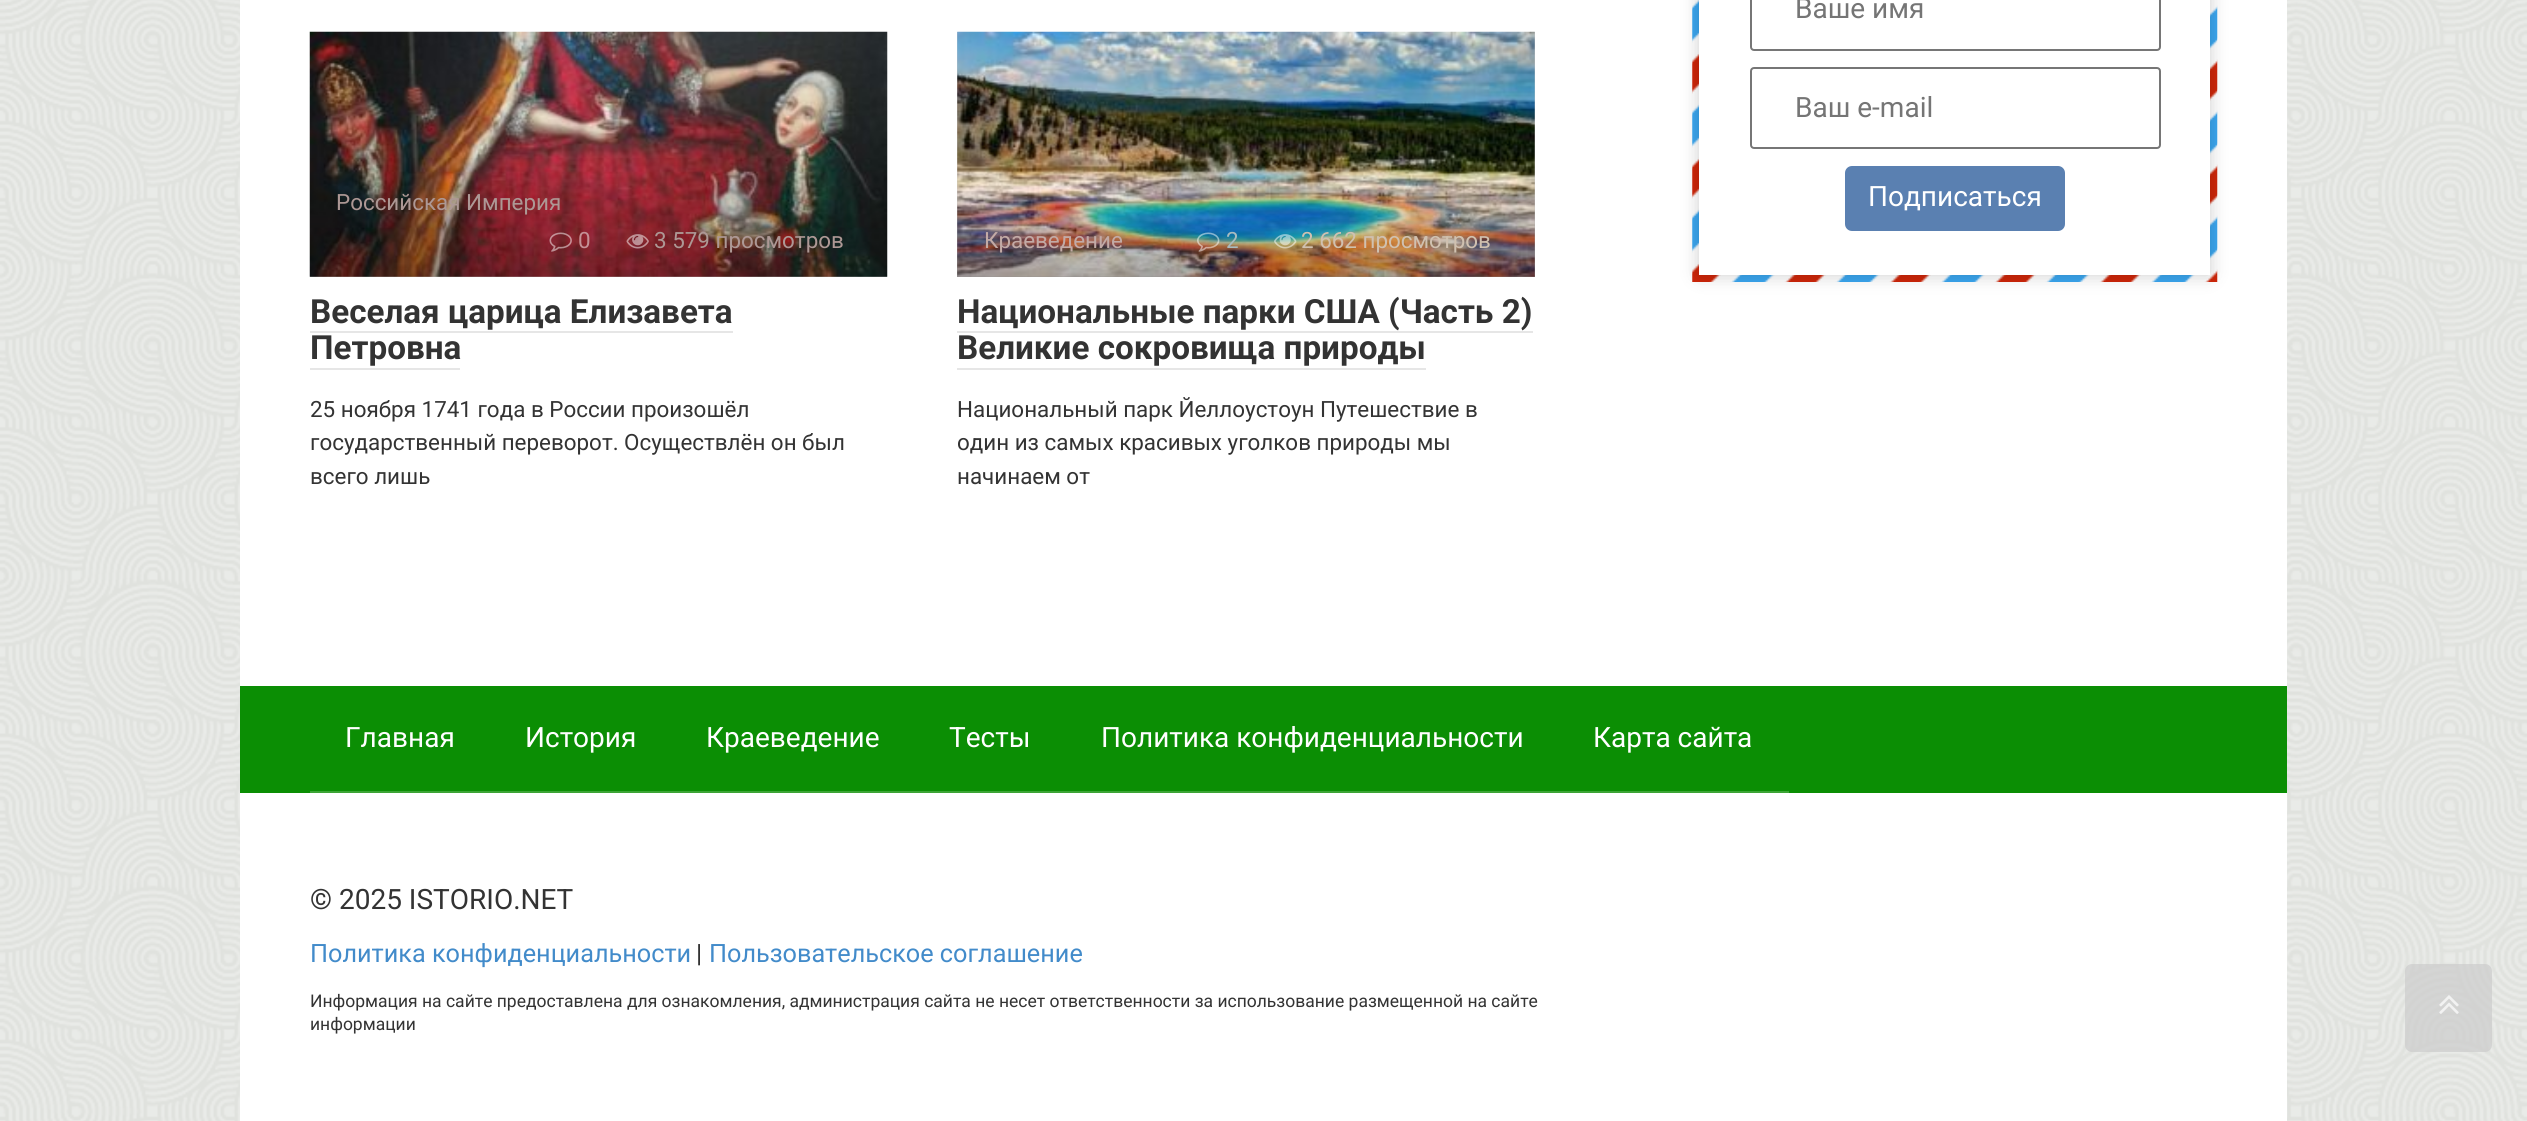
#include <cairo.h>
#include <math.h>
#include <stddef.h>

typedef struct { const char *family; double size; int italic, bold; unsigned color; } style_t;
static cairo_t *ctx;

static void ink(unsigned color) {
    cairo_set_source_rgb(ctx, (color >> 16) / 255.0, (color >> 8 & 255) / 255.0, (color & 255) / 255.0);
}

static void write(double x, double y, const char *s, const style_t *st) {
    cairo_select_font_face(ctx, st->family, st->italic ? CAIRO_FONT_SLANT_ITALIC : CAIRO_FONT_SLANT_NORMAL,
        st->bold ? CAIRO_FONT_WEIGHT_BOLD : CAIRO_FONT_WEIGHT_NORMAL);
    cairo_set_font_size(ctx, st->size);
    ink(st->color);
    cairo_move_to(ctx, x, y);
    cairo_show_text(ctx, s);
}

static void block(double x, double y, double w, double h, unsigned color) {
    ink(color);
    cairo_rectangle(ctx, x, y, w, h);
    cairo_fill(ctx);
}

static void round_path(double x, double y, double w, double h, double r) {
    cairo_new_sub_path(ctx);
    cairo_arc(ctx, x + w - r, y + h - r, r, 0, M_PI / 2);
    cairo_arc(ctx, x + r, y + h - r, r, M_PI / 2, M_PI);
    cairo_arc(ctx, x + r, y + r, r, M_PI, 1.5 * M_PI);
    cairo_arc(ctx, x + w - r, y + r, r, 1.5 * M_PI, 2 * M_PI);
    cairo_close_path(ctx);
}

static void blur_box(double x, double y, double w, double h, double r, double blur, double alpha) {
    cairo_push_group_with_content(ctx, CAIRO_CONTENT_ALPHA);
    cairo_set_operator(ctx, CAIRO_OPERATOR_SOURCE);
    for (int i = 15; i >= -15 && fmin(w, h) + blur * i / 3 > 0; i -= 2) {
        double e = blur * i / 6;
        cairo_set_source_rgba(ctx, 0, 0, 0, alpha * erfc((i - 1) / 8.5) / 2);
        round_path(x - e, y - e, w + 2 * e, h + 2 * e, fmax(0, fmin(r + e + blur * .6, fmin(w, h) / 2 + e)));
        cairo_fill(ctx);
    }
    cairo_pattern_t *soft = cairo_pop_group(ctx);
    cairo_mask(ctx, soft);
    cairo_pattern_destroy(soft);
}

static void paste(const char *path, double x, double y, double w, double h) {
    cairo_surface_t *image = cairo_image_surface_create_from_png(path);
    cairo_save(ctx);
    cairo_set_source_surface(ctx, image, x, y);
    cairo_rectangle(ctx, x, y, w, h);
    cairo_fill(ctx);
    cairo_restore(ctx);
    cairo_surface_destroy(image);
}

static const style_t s1 = {"Roboto", 28, 0, 0, 0x757575};
static const style_t s2 = {"Roboto", 28, 0, 0, 0xffffff};
static const style_t s3 = {"Roboto", 22.4, 0, 0, 0xad9895};
static const style_t s4 = {"Roboto", 22.4, 0, 0, 0xc49196};
static const style_t s5 = {"Roboto", 33.25, 0, 1, 0x333333};
static const style_t s6 = {"Roboto", 22.4, 0, 0, 0x333333};
static const style_t s7 = {"Roboto", 22.4, 0, 0, 0xc2aaa6};
static const style_t s8 = {"Roboto", 22.4, 0, 0, 0xa9bcc0};
static const style_t s9 = {"Roboto", 22.4, 0, 0, 0xd0c1b0};
static const style_t s10 = {"Roboto", 28, 0, 0, 0x333333};
static const style_t s11 = {"Roboto", 25.25, 0, 0, 0x428bca};
static const style_t s12 = {"Roboto", 25.25, 0, 0, 0x333333};
static const style_t s13 = {"Roboto", 17.5, 0, 0, 0x333333};

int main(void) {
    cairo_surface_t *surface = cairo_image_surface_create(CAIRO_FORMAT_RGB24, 2527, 1121);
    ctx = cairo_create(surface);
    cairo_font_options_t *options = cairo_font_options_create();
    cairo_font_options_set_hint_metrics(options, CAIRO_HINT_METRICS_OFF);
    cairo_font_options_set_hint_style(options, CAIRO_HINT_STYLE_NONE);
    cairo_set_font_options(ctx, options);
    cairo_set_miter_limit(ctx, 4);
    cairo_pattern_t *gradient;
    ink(0xe0e2de);
    cairo_paint(ctx);
    paste("pic1.png", 0, 0, 2527, 1121);
    block(240, 0, 2047, 686, 0xffffff);
    paste("pic2.png", 1692, 0, 526, 282);
    ink(0x000000);
    blur_box(1699, -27, 511, 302, 0, 9, 0.2);
    block(1699, 0, 511, 275, 0xffffff);
    round_path(1751, -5, 409, 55, 3);
    ink(0x767676);
    cairo_stroke(ctx);
    write(1795, 18, "Ваше имя", &s1);
    round_path(1751, 68, 409, 80, 3);
    ink(0x767676);
    cairo_stroke(ctx);
    write(1795, 117, "Ваш e-mail", &s1);
    ink(0x5a80b1);
    round_path(1845, 166, 220, 65, 7);
    cairo_fill(ctx);
    write(1868, 206, "Подписаться", &s2);
    paste("pic3.png", 309, 31, 579, 246);
    gradient = cairo_pattern_create_linear(599, 149, 599, 277);
    cairo_pattern_add_color_stop_rgba(gradient, 0, 0, 0, 0, 0);
    cairo_pattern_add_color_stop_rgba(gradient, 1, 0, 0, 0, 0.3);
    cairo_set_source(ctx, gradient);
    cairo_pattern_destroy(gradient);
    cairo_rectangle(ctx, 310, 158, 577, 119);
    cairo_fill(ctx);
    write(336, 210, "Российская Империя", &s3);
    paste("pic4.png", 549, 232, 23, 20);
    write(578, 248, "0", &s4);
    paste("pic5.png", 626, 234, 23, 15);
    write(654, 248, "3 579 просмотров", &s3);
    write(310, 323, "Веселая царица Елизавета", &s5);
    block(310, 331, 423, 2, 0xe6e6e6);
    write(310, 359, "Петровна", &s5);
    block(310, 368, 150, 2, 0xe6e6e6);
    write(310, 417, "25 ноября 1741 года в России произошёл", &s6);
    write(310, 450, "государственный переворот. Осуществлён он был", &s6);
    write(310, 484, "всего лишь", &s6);
    block(957, 32, 578, 245, 0xd0cbcb);
    paste("pic6.png", 957, 31, 578, 246);
    gradient = cairo_pattern_create_linear(1246, 187, 1246, 277);
    cairo_pattern_add_color_stop_rgba(gradient, 0, 0, 0, 0, 0);
    cairo_pattern_add_color_stop_rgba(gradient, 1, 0, 0, 0, 0.3);
    cairo_set_source(ctx, gradient);
    cairo_pattern_destroy(gradient);
    cairo_rectangle(ctx, 957, 193, 578, 84);
    cairo_fill(ctx);
    write(984, 248, "Краеведение", &s7);
    paste("pic7.png", 1197, 232, 23, 20);
    write(1226, 248, "2", &s8);
    paste("pic8.png", 1274, 234, 23, 15);
    write(1301, 248, "2 662 просмотров", &s9);
    write(957, 323, "Национальные парки США (Часть 2)", &s5);
    block(957, 331, 576, 2, 0xe6e6e6);
    write(957, 359, "Великие сокровища природы", &s5);
    block(957, 368, 469, 2, 0xe6e6e6);
    write(957, 417, "Национальный парк Йеллоустоун Путешествие в", &s6);
    write(957, 450, "один из самых красивых уголков природы мы", &s6);
    write(957, 484, "начинаем от", &s6);
    block(240, 686, 2047, 107, 0x0b8e04);
    block(310, 791, 1479, 2, 0x3ca536);
    write(345, 747, "Главная", &s2);
    write(525, 747, "История", &s2);
    write(706, 747, "Краеведение", &s2);
    write(949, 747, "Тесты", &s2);
    write(1101, 747, "Политика конфиденциальности", &s2);
    write(1593, 747, "Карта сайта", &s2);
    block(240, 793, 2047, 328, 0xffffff);
    write(310, 909, "© 2025 ISTORIO.NET", &s10);
    write(310, 962, "Политика конфиденциальности", &s11);
    write(696, 962, "|", &s12);
    write(709, 962, "Пользовательское соглашение", &s11);
    write(310, 1007, "Информация на сайте предоставлена для ознакомления, администрация сайта не несет ответственности за использование размещенной на сайте", &s13);
    write(310, 1030, "информации", &s13);
    cairo_set_source_rgba(ctx, 0.8, 0.8, 0.8, 0.7);
    round_path(2405, 964, 87, 88, 7);
    cairo_fill(ctx);
    paste("pic9.png", 2439, 995, 20, 19);
    cairo_surface_write_to_png(surface, "screenshot.png");
    cairo_font_options_destroy(options);
    cairo_destroy(ctx);
    cairo_surface_destroy(surface);
    return 0;
}
